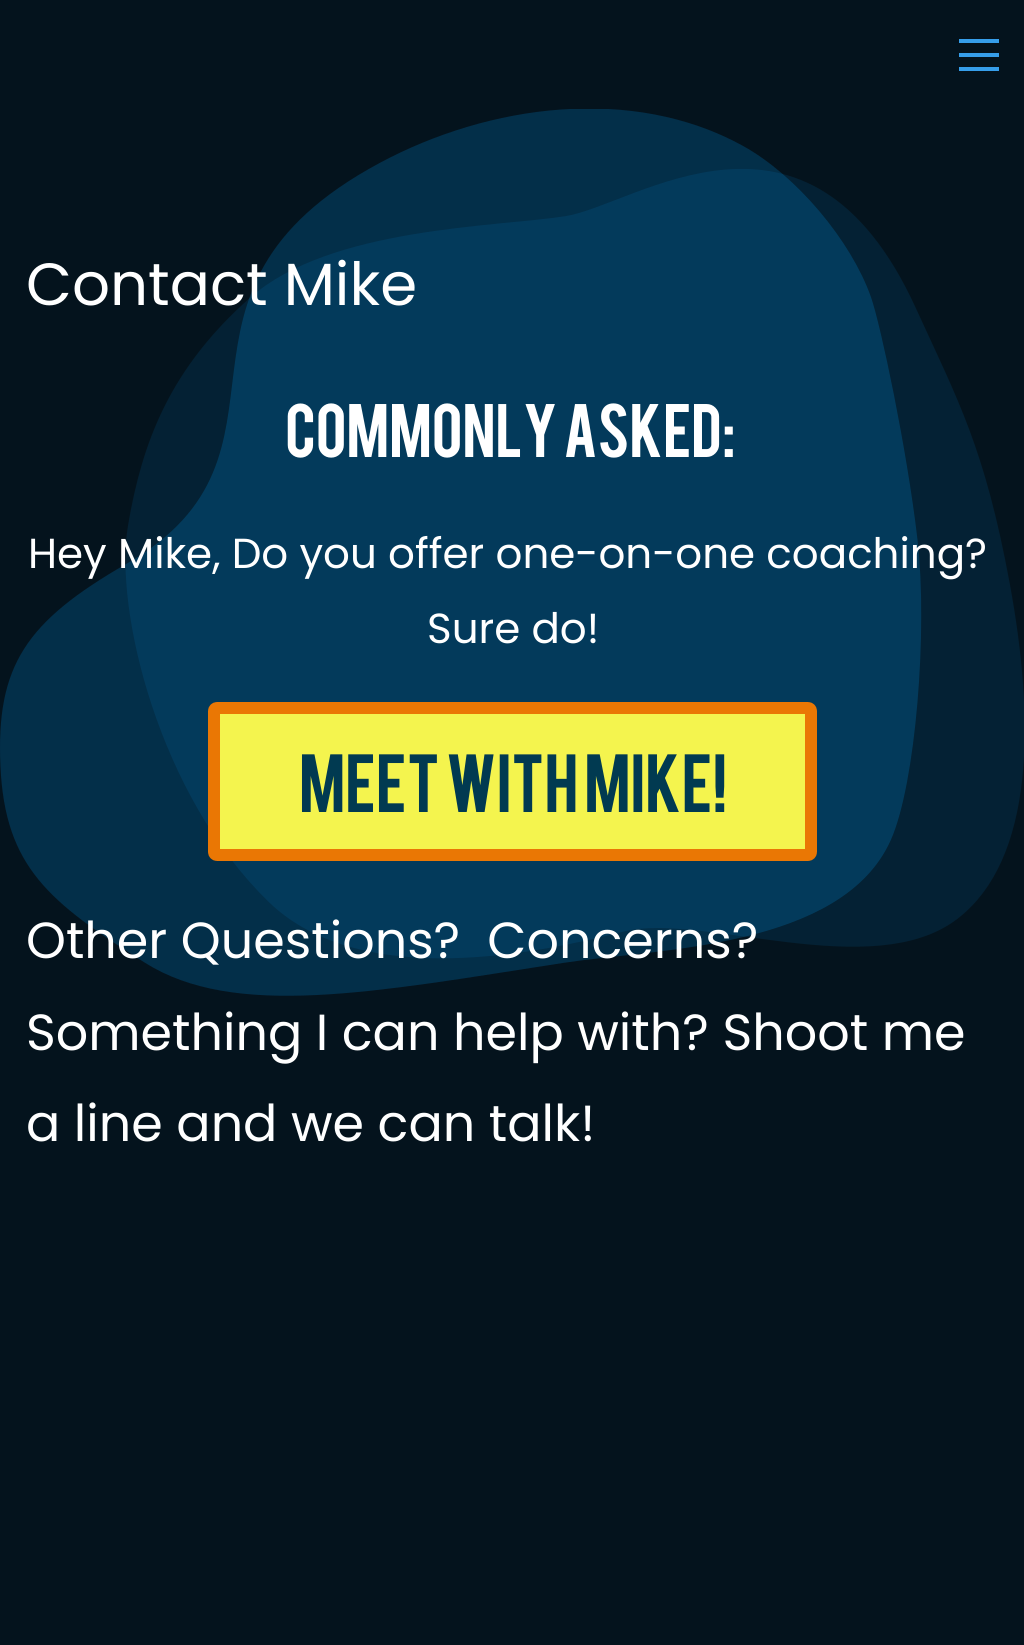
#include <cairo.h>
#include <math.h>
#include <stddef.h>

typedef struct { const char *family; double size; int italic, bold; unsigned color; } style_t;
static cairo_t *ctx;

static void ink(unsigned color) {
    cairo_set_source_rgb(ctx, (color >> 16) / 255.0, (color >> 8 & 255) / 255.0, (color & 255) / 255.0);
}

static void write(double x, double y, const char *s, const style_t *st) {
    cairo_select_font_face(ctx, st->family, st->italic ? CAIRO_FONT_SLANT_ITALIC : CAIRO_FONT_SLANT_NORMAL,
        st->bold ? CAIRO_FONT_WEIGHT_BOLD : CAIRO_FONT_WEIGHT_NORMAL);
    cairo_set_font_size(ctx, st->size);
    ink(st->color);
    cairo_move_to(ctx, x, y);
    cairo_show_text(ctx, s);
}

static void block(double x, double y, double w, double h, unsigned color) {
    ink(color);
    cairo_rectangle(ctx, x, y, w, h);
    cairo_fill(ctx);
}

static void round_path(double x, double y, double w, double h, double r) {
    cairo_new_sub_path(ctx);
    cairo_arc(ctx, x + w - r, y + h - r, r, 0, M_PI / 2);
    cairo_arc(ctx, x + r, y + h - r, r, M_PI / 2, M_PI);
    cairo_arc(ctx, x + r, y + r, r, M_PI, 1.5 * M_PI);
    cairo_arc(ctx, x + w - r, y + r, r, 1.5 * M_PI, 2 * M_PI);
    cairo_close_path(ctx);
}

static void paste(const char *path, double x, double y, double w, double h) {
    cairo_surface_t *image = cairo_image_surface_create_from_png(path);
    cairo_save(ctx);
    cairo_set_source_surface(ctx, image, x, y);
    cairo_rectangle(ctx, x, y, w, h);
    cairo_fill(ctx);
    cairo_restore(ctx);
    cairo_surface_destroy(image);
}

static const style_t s1 = {"Poppins", 59.5, 0, 0, 0xffffff};
static const style_t s2 = {"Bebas", 59.5, 0, 0, 0xffffff};
static const style_t s3 = {"Poppins", 42, 0, 0, 0xffffff};
static const style_t s4 = {"Bebas", 64.75, 0, 0, 0x013a51};
static const style_t s5 = {"Poppins", 50.75, 0, 0, 0xffffff};

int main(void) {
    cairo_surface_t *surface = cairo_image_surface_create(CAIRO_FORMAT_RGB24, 1024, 1645);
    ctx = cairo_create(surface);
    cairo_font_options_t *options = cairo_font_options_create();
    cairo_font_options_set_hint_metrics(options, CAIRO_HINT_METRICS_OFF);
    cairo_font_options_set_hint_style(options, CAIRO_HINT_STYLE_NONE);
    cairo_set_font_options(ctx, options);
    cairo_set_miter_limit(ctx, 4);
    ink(0x04131d);
    cairo_paint(ctx);
    block(959, 39, 40, 4, 0x369eea);
    block(959, 53, 40, 4, 0x369eea);
    block(959, 67, 40, 4, 0x369eea);
    paste("pic1.png", 0, 109, 1024, 887);
    write(26, 305, "Contact Mike", &s1);
    write(285, 457, "Commonly Asked:", &s2);
    write(28, 568, "Hey Mike, Do you offer one-on-one coaching?", &s3);
    write(427, 643, "Sure do!", &s3);
    ink(0xf4f44e);
    round_path(214, 708, 597, 147, 3);
    cairo_fill_preserve(ctx);
    ink(0xea7704);
    cairo_set_line_width(ctx, 12);
    cairo_stroke(ctx);
    write(299, 812, "Meet with Mike!", &s4);
    write(26, 958, "Other Questions?  Concerns?", &s5);
    write(26, 1050, "Something I can help with? Shoot me", &s5);
    write(26, 1141, "a line and we can talk!", &s5);
    cairo_surface_write_to_png(surface, "screenshot.png");
    cairo_font_options_destroy(options);
    cairo_destroy(ctx);
    cairo_surface_destroy(surface);
    return 0;
}
